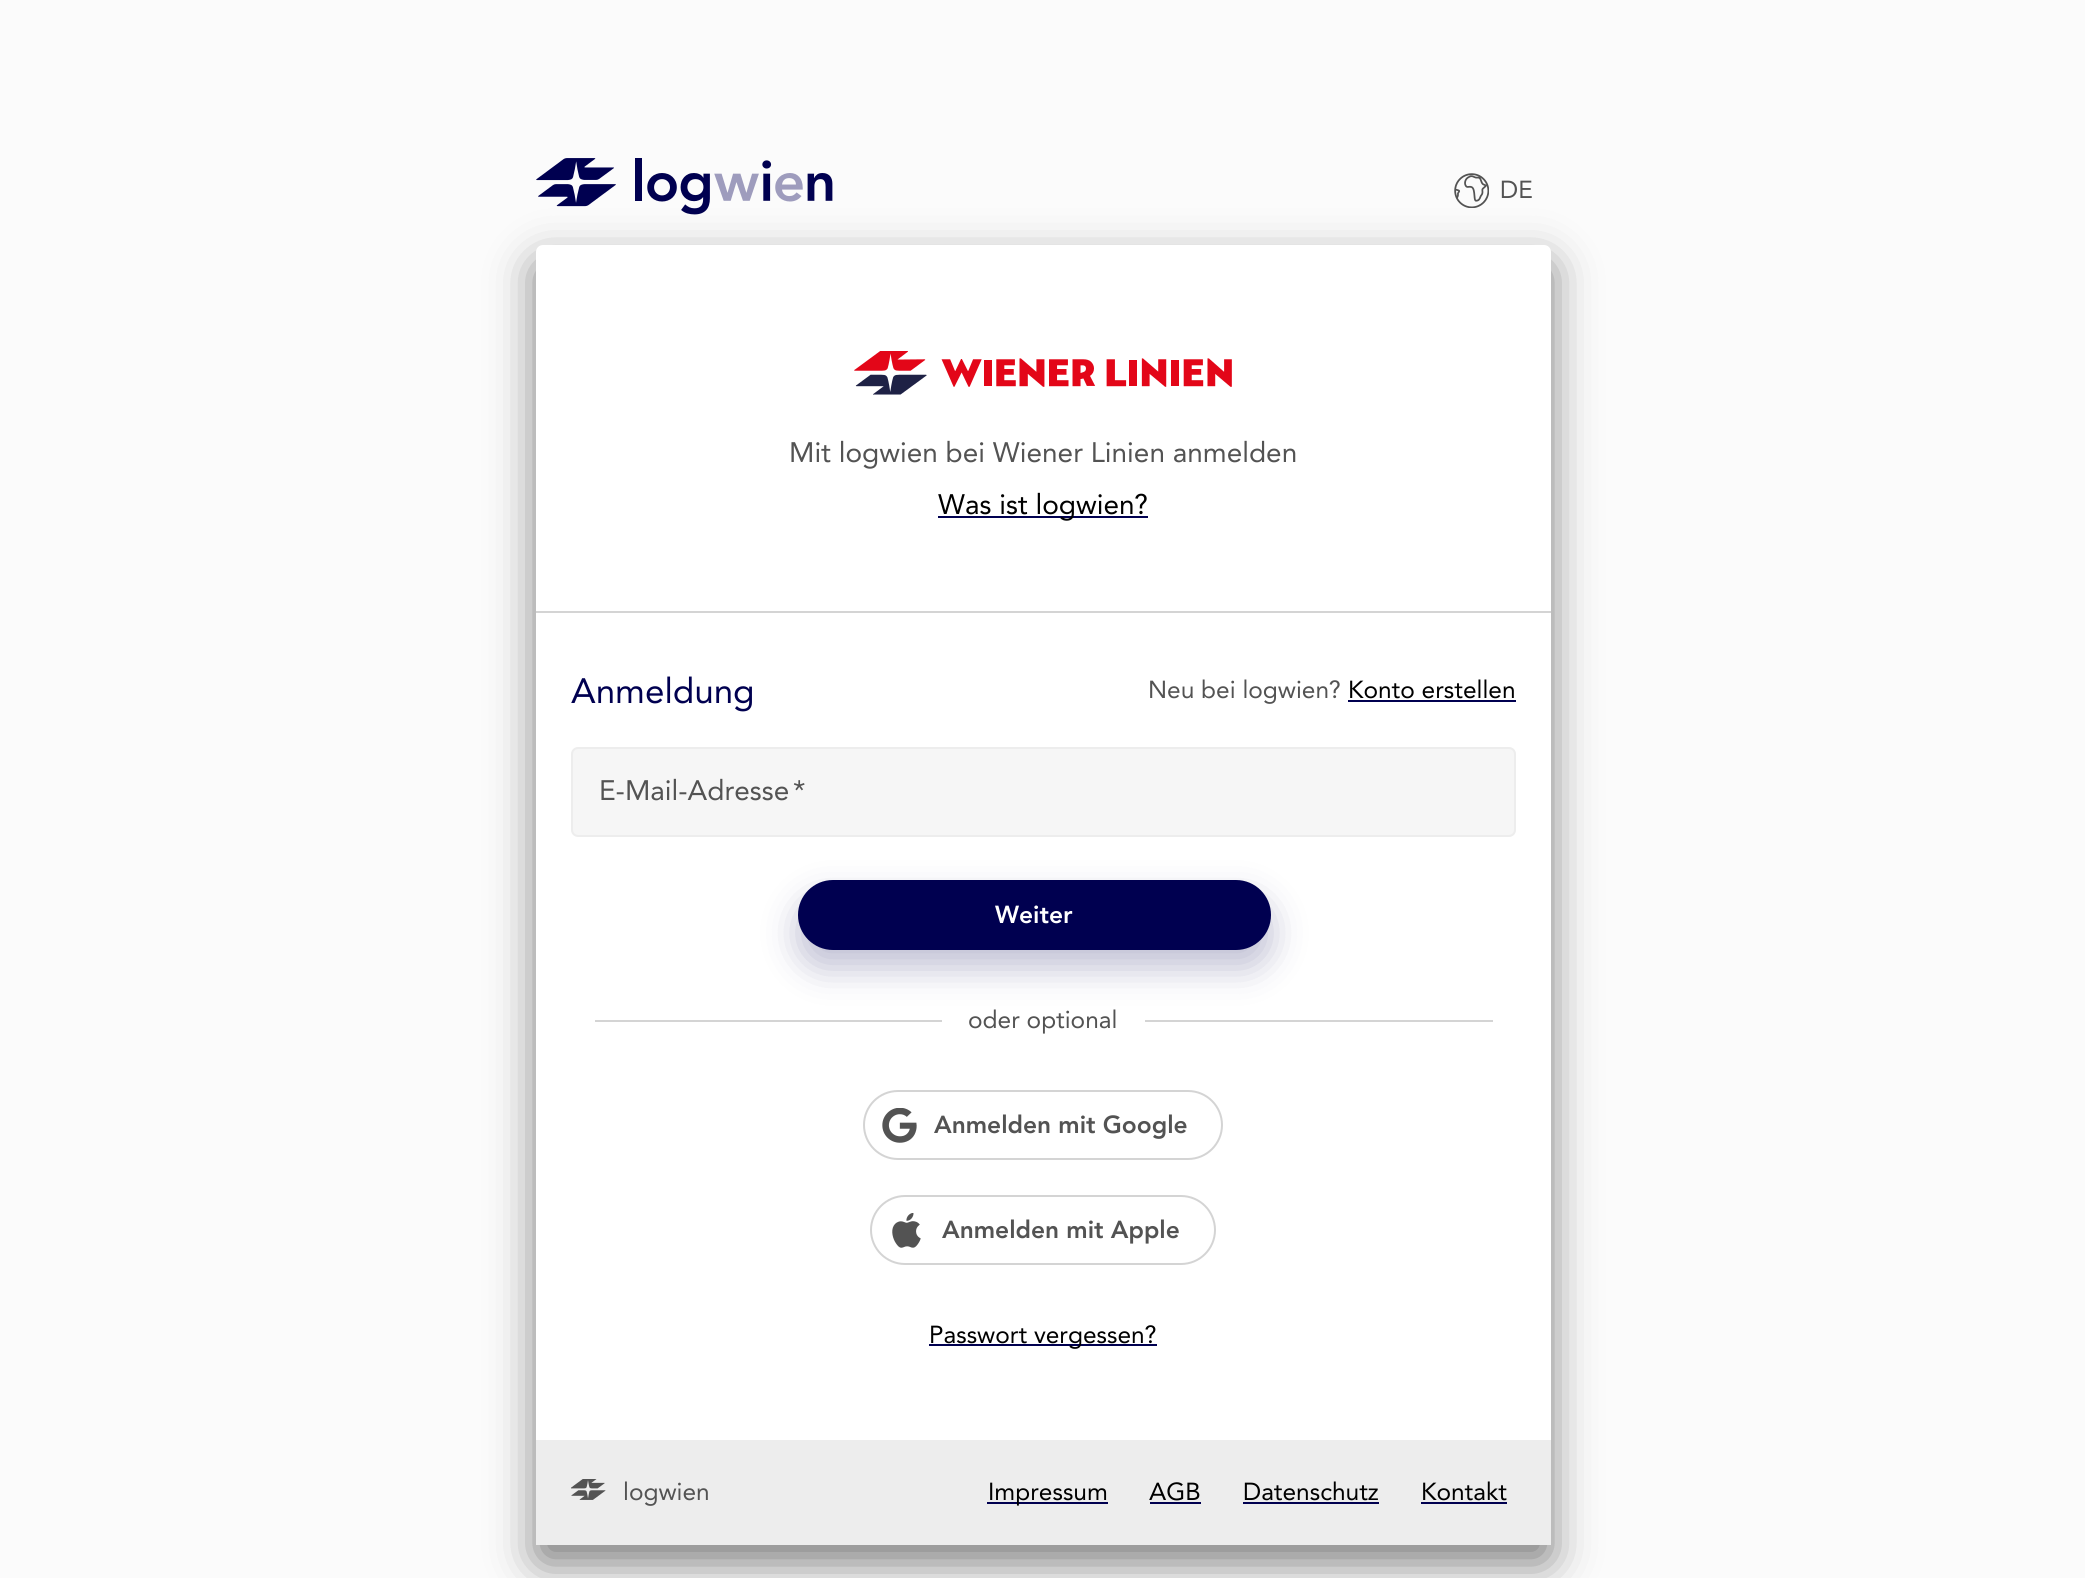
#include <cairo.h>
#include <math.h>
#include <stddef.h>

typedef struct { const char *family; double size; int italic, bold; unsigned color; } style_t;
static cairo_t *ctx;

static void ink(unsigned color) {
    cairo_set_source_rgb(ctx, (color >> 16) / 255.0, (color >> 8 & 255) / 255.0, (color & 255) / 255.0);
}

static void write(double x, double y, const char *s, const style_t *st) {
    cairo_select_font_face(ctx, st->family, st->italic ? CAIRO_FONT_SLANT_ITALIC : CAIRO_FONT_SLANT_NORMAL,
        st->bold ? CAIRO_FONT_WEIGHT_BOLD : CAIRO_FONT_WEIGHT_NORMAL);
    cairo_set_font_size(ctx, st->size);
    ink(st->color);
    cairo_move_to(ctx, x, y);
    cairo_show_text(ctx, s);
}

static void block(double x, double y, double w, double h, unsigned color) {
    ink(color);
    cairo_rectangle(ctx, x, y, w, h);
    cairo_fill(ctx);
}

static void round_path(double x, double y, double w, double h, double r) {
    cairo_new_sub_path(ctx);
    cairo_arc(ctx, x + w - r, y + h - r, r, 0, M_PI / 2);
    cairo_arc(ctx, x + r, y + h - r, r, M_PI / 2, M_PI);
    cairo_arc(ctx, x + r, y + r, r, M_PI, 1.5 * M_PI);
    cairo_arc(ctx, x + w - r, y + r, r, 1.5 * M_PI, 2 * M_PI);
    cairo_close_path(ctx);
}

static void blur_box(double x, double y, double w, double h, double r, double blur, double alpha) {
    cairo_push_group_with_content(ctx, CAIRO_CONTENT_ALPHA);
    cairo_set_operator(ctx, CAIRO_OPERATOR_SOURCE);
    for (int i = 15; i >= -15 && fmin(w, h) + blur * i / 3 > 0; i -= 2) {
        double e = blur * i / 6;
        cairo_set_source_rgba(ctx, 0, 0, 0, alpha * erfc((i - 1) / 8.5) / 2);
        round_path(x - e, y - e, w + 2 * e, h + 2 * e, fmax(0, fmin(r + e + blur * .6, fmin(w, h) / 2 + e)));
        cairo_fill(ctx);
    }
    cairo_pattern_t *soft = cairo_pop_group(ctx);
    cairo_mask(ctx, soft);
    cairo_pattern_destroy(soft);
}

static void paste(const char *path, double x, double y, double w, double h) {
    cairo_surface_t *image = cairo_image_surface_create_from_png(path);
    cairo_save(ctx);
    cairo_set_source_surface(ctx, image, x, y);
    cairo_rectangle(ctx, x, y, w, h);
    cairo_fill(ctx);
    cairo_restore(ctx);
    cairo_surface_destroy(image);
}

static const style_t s1 = {"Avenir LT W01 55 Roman", 24.5, 0, 0, 0x535353};
static const style_t s2 = {"Avenir LT W01 55 Roman", 28, 0, 0, 0x535353};
static const style_t s3 = {"Avenir LT W01 55 Roman", 28, 0, 0, 0x000000};
static const style_t s4 = {"Avenir LT W01 55 Roman", 35, 0, 0, 0x000050};
static const style_t s5 = {"Avenir LT W01 55 Roman", 24.5, 0, 0, 0x000000};
static const style_t s6 = {"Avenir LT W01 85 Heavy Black", 24.5, 0, 0, 0xffffff};
static const style_t s7 = {"Avenir LT W01 85 Heavy Black", 24.5, 0, 0, 0x535353};

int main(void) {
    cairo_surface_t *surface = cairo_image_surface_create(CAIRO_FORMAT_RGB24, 2085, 1578);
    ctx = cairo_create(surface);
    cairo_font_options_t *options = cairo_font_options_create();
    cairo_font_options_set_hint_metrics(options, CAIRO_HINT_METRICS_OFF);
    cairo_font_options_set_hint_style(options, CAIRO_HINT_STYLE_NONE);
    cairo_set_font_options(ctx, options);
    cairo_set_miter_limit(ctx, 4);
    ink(0xfbfbfb);
    cairo_paint(ctx);
    ink(0x535353);
    blur_box(536, 263, 1015, 1300, 7, 22, 0.75);
    ink(0xffffff);
    round_path(536, 245, 1015, 1300, 7);
    cairo_fill(ctx);
    paste("pic1.png", 536, 158, 297, 57);
    paste("pic2.png", 1454, 173, 35, 35);
    write(1500, 198, "DE", &s1);
    block(536, 611, 1015, 2, 0xd4d4d4);
    paste("pic3.png", 854, 351, 378, 44);
    write(789, 462, "Mit logwien bei Wiener Linien anmelden", &s2);
    block(938, 516, 210, 2, 0x000050);
    write(938, 514, "Was ist logwien?", &s3);
    write(571, 703, "Anmeldung", &s4);
    write(1148, 698, "Neu bei logwien?", &s1);
    write(1348, 698, "Konto erstellen", &s5);
    block(1348, 700, 168, 2, 0x000050);
    ink(0xf6f6f6);
    round_path(572, 748, 943, 88, 6);
    cairo_fill_preserve(ctx);
    ink(0xededed);
    cairo_stroke(ctx);
    write(599, 800, "E-Mail-Adresse", &s2);
    write(793, 800, "*", &s2);
    ink(0x000050);
    blur_box(798, 898, 473, 70, 35, 17.5, 0.25);
    ink(0x000050);
    round_path(799, 881, 471, 68, 34);
    cairo_fill_preserve(ctx);
    cairo_stroke(ctx);
    write(995, 923, "Weiter", &s6);
    block(595, 1020, 898, 2, 0xd4d4d4);
    block(942, 1020, 203, 2, 0xffffff);
    write(968, 1028, "oder optional", &s1);
    round_path(864, 1091, 358, 68, 34);
    ink(0xd4d4d4);
    cairo_stroke(ctx);
    paste("pic4.png", 882, 1108, 35, 35);
    write(934, 1133, "Anmelden mit Google", &s7);
    round_path(871, 1196, 344, 68, 34);
    ink(0xd4d4d4);
    cairo_stroke(ctx);
    paste("pic5.png", 892, 1213, 29, 35);
    write(942, 1238, "Anmelden mit Apple", &s7);
    block(929, 1344, 228, 2, 0x000050);
    write(929, 1343, "Passwort vergessen?", &s5);
    block(536, 1440, 1015, 105, 0xededed);
    paste("pic6.png", 571, 1479, 35, 21);
    write(623, 1500, "logwien", &s1);
    block(987, 1502, 121, 2, 0x000050);
    write(988, 1500, "Impressum", &s5);
    write(1149, 1500, "AGB", &s5);
    block(1150, 1502, 51, 2, 0x000050);
    write(1243, 1500, "Datenschutz", &s5);
    block(1243, 1502, 136, 2, 0x000050);
    write(1421, 1500, "Kontakt", &s5);
    block(1421, 1502, 86, 2, 0x000050);
    cairo_surface_write_to_png(surface, "screenshot.png");
    cairo_font_options_destroy(options);
    cairo_destroy(ctx);
    cairo_surface_destroy(surface);
    return 0;
}
